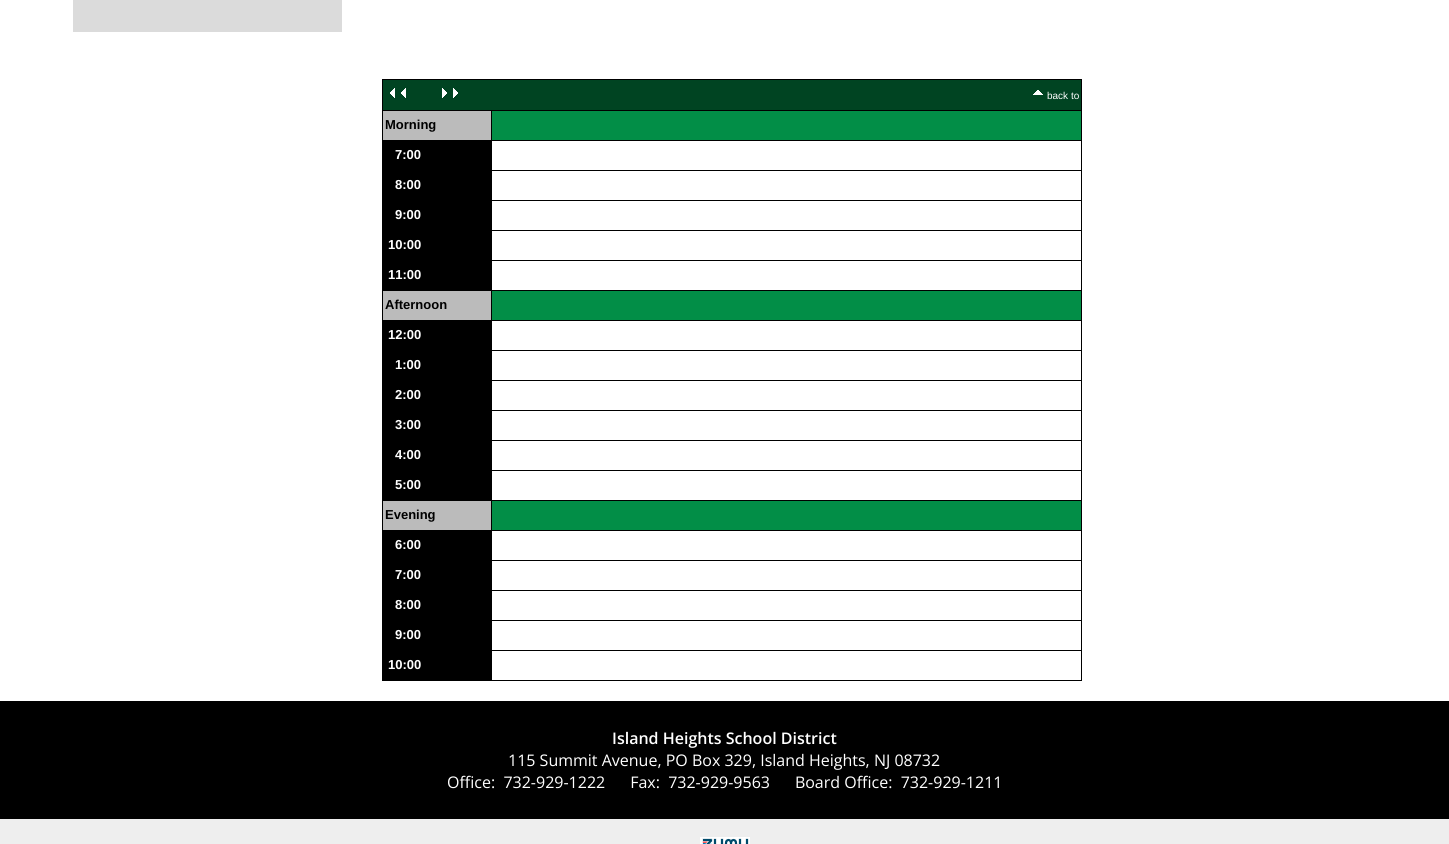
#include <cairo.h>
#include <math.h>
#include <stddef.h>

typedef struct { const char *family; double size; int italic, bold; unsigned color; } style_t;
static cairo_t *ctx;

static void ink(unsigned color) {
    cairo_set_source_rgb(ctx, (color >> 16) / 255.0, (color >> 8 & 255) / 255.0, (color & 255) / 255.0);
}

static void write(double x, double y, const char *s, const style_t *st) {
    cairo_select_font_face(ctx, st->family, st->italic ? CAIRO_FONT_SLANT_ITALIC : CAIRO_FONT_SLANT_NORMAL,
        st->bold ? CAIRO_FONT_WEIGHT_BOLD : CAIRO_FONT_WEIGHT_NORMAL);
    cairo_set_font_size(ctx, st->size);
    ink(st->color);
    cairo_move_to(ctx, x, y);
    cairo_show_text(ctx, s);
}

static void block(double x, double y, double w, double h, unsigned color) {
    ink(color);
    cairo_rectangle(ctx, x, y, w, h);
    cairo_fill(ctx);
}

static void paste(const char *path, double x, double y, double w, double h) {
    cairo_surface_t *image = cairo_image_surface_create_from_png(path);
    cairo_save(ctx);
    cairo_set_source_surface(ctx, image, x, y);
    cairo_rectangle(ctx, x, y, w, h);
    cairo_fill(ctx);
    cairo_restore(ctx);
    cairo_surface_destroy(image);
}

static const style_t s1 = {"Liberation Sans", 10, 0, 0, 0xffffff};
static const style_t s2 = {"Liberation Sans", 13, 0, 1, 0x000000};
static const style_t s3 = {"Liberation Sans", 13, 0, 1, 0xffffff};
static const style_t s4 = {"Open Sans SemiBold", 16, 0, 0, 0xffffff};
static const style_t s5 = {"Open Sans", 16, 0, 0, 0xffffff};

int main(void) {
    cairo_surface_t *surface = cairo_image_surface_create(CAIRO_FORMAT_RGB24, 1449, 844);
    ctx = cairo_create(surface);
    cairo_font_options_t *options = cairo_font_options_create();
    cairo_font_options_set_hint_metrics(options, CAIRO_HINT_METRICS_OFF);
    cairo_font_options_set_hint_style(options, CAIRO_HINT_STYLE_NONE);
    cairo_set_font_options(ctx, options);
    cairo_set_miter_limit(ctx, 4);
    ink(0xffffff);
    cairo_paint(ctx);
    block(73, 0, 269, 32, 0xdbdbdb);
    block(382, 79, 700, 602, 0x000000);
    block(383, 80, 698, 30, 0x004422);
    paste("pic1.png", 390, 88, 5, 10);
    paste("pic1.png", 401, 88, 5, 10);
    paste("pic2.png", 442, 88, 5, 10);
    paste("pic2.png", 453, 88, 5, 10);
    paste("pic3.png", 1033, 90, 10, 5);
    write(1047, 99, "back to", &s1);
    block(383, 111, 108, 29, 0xbbbbbb);
    write(385, 129, "Morning", &s2);
    block(492, 111, 589, 29, 0x028e47);
    write(395, 159, "7:00", &s3);
    block(492, 141, 589, 29, 0xffffff);
    write(395, 189, "8:00", &s3);
    block(492, 171, 589, 29, 0xffffff);
    write(395, 219, "9:00", &s3);
    block(492, 201, 589, 29, 0xffffff);
    write(388, 249, "10:00", &s3);
    block(492, 231, 589, 29, 0xffffff);
    write(388, 279, "11:00", &s3);
    block(492, 261, 589, 29, 0xffffff);
    block(383, 291, 108, 29, 0xbbbbbb);
    write(385, 309, "Afternoon", &s2);
    block(492, 291, 589, 29, 0x028e47);
    write(388, 339, "12:00", &s3);
    block(492, 321, 589, 29, 0xffffff);
    write(395, 369, "1:00", &s3);
    block(492, 351, 589, 29, 0xffffff);
    write(395, 399, "2:00", &s3);
    block(492, 381, 589, 29, 0xffffff);
    write(395, 429, "3:00", &s3);
    block(492, 411, 589, 29, 0xffffff);
    write(395, 459, "4:00", &s3);
    block(492, 441, 589, 29, 0xffffff);
    write(395, 489, "5:00", &s3);
    block(492, 471, 589, 29, 0xffffff);
    block(383, 501, 108, 29, 0xbbbbbb);
    write(385, 519, "Evening", &s2);
    block(492, 501, 589, 29, 0x028e47);
    write(395, 549, "6:00", &s3);
    block(492, 531, 589, 29, 0xffffff);
    write(395, 579, "7:00", &s3);
    block(492, 561, 589, 29, 0xffffff);
    write(395, 609, "8:00", &s3);
    block(492, 591, 589, 29, 0xffffff);
    write(395, 639, "9:00", &s3);
    block(492, 621, 589, 29, 0xffffff);
    write(388, 669, "10:00", &s3);
    block(492, 651, 589, 29, 0xffffff);
    block(0, 701, 1449, 118, 0x000000);
    write(612, 744, "Island Heights School District", &s4);
    write(508, 766, "115 Summit Avenue, PO Box 329, Island Heights, NJ 08732", &s5);
    write(447, 788, "Office:  732-929-1222      Fax:  732-929-9563      Board Office:  732-929-1211", &s5);
    block(0, 819, 1449, 25, 0xeeeeee);
    paste("pic4.png", 700, 837, 50, 7);
    cairo_surface_write_to_png(surface, "screenshot.png");
    cairo_font_options_destroy(options);
    cairo_destroy(ctx);
    cairo_surface_destroy(surface);
    return 0;
}
